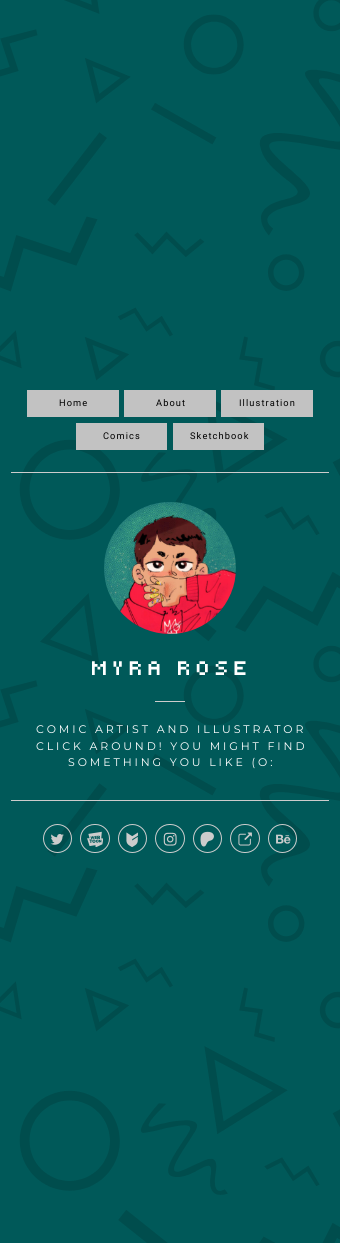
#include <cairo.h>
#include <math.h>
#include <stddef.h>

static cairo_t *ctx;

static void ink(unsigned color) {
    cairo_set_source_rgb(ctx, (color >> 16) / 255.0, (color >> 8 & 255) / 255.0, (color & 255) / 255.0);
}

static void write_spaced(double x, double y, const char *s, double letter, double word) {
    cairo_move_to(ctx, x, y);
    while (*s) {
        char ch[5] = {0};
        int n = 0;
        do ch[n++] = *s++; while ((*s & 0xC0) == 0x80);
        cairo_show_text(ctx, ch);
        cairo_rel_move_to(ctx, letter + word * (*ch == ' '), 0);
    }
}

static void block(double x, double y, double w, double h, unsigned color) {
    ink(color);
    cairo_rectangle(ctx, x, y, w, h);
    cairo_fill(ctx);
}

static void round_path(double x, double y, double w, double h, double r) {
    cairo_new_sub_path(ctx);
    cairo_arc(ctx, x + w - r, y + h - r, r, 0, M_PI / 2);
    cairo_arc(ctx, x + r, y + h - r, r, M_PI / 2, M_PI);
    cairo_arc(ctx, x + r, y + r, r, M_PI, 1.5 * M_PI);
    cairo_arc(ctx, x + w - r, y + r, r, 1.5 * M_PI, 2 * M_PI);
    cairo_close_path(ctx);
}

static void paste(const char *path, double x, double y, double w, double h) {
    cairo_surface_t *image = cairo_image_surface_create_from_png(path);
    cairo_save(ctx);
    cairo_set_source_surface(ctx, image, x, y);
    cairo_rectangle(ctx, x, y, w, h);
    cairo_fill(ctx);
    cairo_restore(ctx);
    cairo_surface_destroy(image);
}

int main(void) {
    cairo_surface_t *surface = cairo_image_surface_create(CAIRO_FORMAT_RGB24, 340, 1243);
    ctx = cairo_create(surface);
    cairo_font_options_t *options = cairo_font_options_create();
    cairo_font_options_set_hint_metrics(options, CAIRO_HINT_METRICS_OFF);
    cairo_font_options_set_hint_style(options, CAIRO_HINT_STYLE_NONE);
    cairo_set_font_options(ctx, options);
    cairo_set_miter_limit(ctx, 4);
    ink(0x005959);
    cairo_paint(ctx);
    paste("pic1.png", 0, 0, 340, 1243);
    block(27, 390, 92, 27, 0xc2c2c2);
    cairo_select_font_face(ctx, "Roboto", CAIRO_FONT_SLANT_NORMAL, CAIRO_FONT_WEIGHT_NORMAL);
    cairo_set_font_size(ctx, 9.25);
    ink(0x000000);
    write_spaced(59, 406, "Home", 1.1, 0);
    block(124, 390, 92, 27, 0xc2c2c2);
    ink(0x000000);
    write_spaced(156, 406, "About", 1.1, 0);
    block(221, 390, 92, 27, 0xc2c2c2);
    ink(0x000000);
    write_spaced(239, 406, "Illustration", 1.1, 0);
    block(76, 423, 91, 27, 0xc2c2c2);
    ink(0x000000);
    write_spaced(103, 439, "Comics", 1.1, 0);
    block(173, 423, 91, 27, 0xc2c2c2);
    ink(0x000000);
    write_spaced(190, 439, "Sketchbook", 1.1, 0);
    block(11, 472, 318, 1, 0xcccccc);
    paste("pic2.png", 104, 502, 132, 132);
    cairo_select_font_face(ctx, "Tiny5", CAIRO_FONT_SLANT_NORMAL, CAIRO_FONT_WEIGHT_NORMAL);
    cairo_set_font_size(ctx, 22);
    ink(0xffffff);
    write_spaced(92, 675, "MYRA ROSE", 5.1, 0);
    block(155, 701, 30, 1, 0xcccccc);
    cairo_select_font_face(ctx, "Montserrat", CAIRO_FONT_SLANT_NORMAL, CAIRO_FONT_WEIGHT_NORMAL);
    cairo_set_font_size(ctx, 11);
    ink(0xffffff);
    write_spaced(36, 733, "COMIC ARTIST AND ILLUSTRATOR", 2.9, 0);
    write_spaced(36, 750, "CLICK AROUND! YOU MIGHT FIND", 2.9, 0);
    write_spaced(68, 766, "SOMETHING YOU LIKE (O:", 2.9, 0);
    block(11, 800, 318, 1, 0xcccccc);
    cairo_new_path(ctx);
    cairo_arc(ctx, 57.5, 838.5, 14, 0, 2 * M_PI);
    cairo_set_line_width(ctx, 1);
    cairo_stroke(ctx);
    paste("pic3.png", 50, 834, 14, 11);
    round_path(80.5, 824.5, 29, 28, 14);
    cairo_stroke(ctx);
    paste("pic4.png", 87, 831, 16, 16);
    cairo_arc(ctx, 132.5, 838.5, 14, 0, 2 * M_PI);
    cairo_stroke(ctx);
    paste("pic5.png", 126, 832, 12, 15);
    round_path(155.5, 824.5, 29, 28, 14);
    cairo_stroke(ctx);
    paste("pic6.png", 163, 832, 14, 14);
    cairo_arc(ctx, 207.5, 838.5, 14, 0, 2 * M_PI);
    cairo_stroke(ctx);
    paste("pic7.png", 200, 831, 14, 16);
    round_path(230.5, 824.5, 29, 28, 14);
    cairo_stroke(ctx);
    paste("pic8.png", 238, 832, 14, 14);
    cairo_arc(ctx, 282.5, 838.5, 14, 0, 2 * M_PI);
    cairo_stroke(ctx);
    paste("pic9.png", 276, 834, 15, 10);
    cairo_surface_write_to_png(surface, "screenshot.png");
    cairo_font_options_destroy(options);
    cairo_destroy(ctx);
    cairo_surface_destroy(surface);
    return 0;
}
